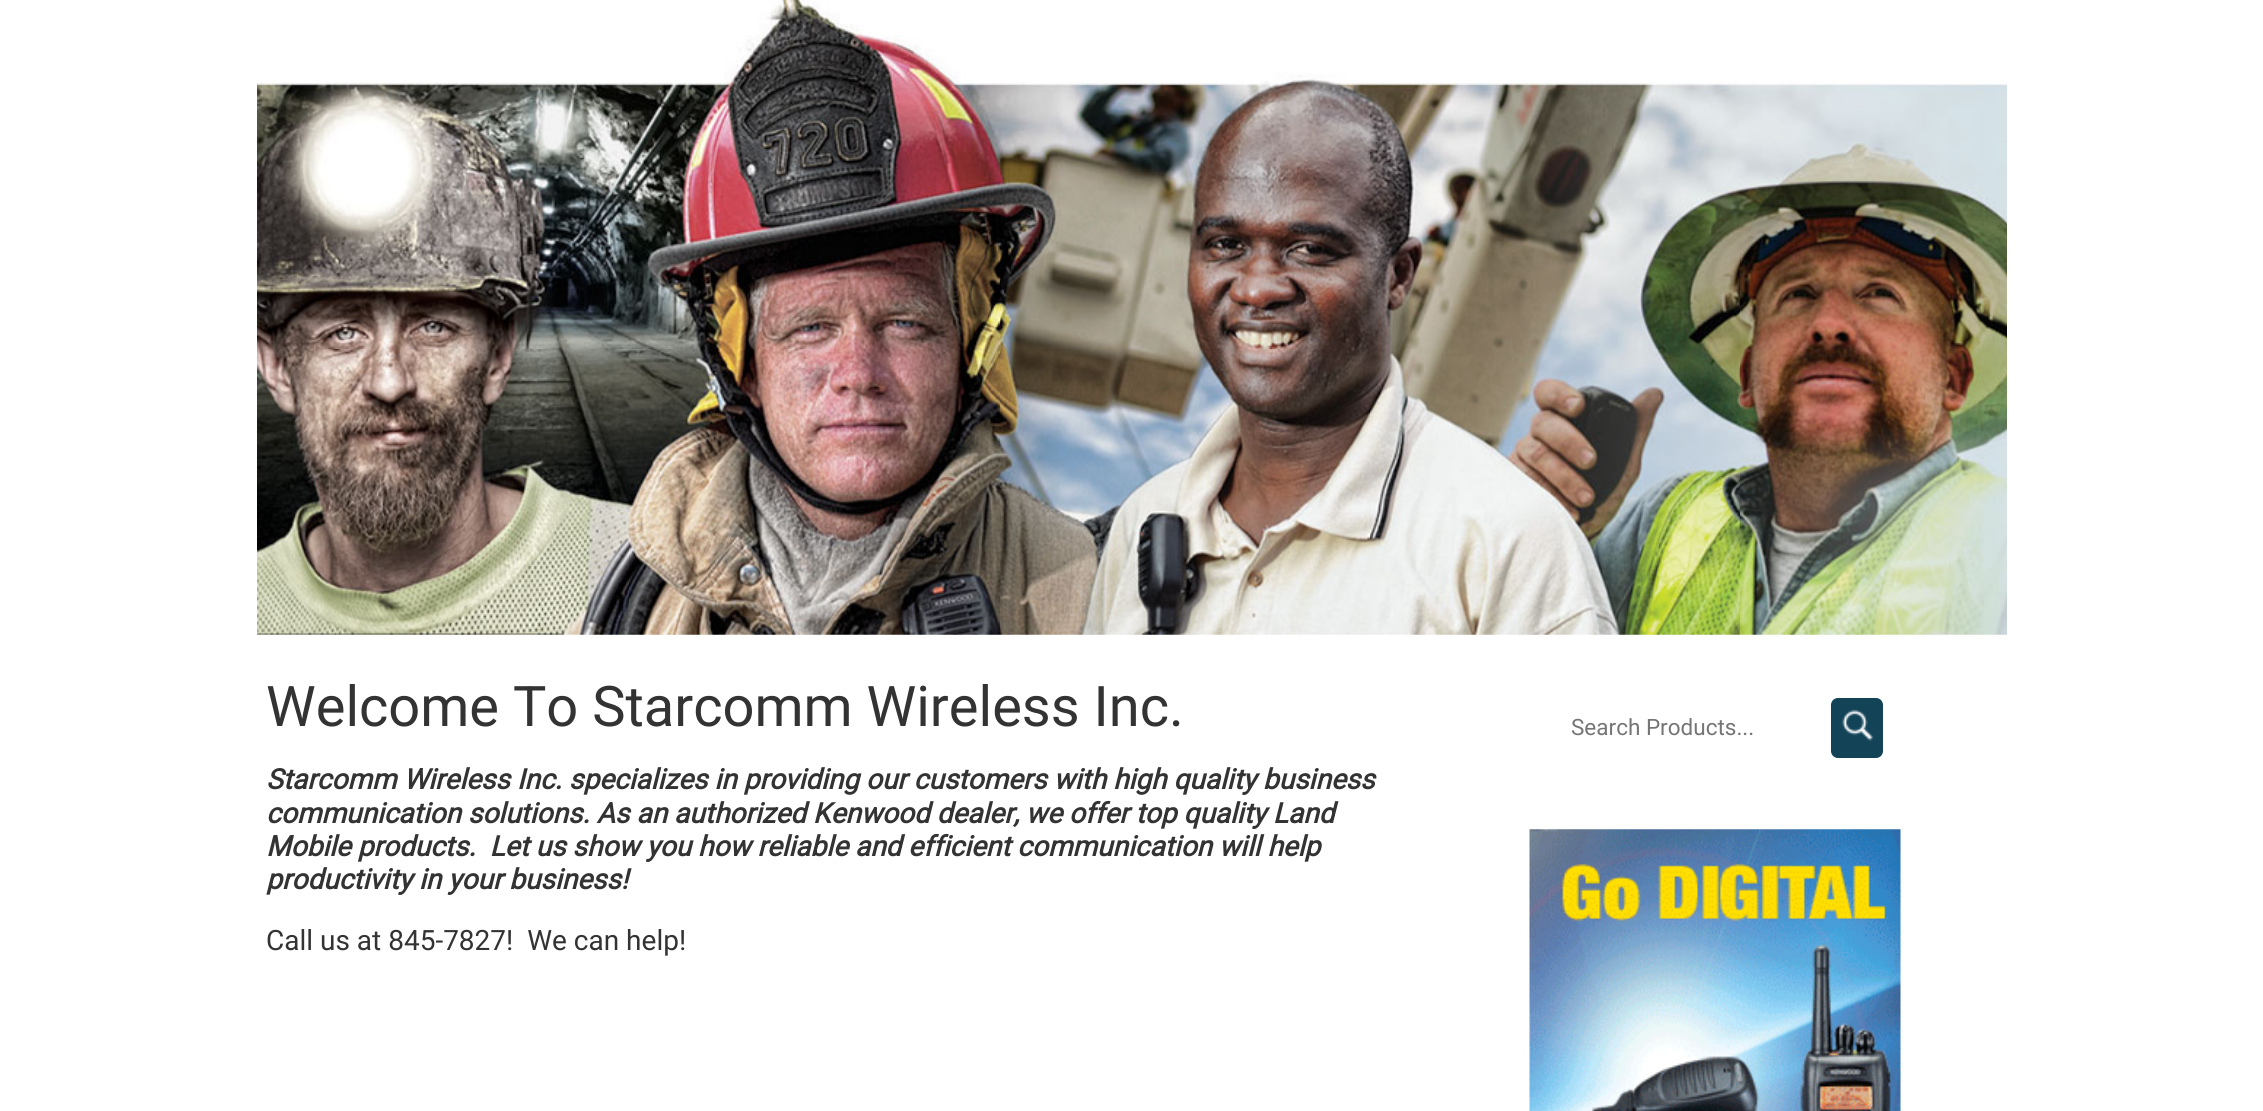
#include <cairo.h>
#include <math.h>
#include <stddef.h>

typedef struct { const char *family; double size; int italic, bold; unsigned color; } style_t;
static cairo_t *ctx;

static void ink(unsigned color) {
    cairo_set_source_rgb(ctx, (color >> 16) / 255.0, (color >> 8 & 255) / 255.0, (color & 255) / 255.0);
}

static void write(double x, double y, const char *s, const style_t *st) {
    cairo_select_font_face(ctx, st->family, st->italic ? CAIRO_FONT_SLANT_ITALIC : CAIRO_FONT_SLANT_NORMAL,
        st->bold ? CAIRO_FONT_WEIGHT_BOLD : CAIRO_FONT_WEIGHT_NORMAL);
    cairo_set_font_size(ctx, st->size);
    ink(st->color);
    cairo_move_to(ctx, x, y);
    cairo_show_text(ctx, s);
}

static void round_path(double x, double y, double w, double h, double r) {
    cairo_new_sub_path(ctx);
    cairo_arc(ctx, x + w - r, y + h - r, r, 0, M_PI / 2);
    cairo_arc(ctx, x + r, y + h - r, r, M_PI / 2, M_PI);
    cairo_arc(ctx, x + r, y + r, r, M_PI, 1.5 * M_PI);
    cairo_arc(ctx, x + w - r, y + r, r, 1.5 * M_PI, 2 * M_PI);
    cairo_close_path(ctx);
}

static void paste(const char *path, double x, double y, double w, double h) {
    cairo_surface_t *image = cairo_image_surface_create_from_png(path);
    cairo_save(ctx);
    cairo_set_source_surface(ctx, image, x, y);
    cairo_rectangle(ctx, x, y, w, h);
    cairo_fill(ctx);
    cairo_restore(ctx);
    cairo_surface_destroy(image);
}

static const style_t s1 = {"Roboto", 56, 0, 0, 0x333333};
static const style_t s2 = {"Roboto", 28, 1, 1, 0x333333};
static const style_t s3 = {"Roboto", 28, 0, 0, 0x333333};
static const style_t s4 = {"Roboto", 22.5, 0, 0, 0x757575};

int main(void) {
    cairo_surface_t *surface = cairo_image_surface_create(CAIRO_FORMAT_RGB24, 2263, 1111);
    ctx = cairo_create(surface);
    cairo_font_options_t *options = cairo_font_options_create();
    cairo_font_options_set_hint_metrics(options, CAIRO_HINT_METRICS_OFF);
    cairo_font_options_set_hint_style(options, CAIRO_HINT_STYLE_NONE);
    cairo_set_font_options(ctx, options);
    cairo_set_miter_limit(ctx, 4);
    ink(0xffffff);
    cairo_paint(ctx);
    paste("pic1.png", 257, 0, 1750, 635);
    write(266, 726, "Welcome To Starcomm Wireless Inc.", &s1);
    write(266, 789, "Starcomm Wireless Inc. specializes in providing our customers with high quality business", &s2);
    write(266, 823, "communication solutions. As an authorized Kenwood dealer, we offer top quality Land", &s2);
    write(266, 856, "Mobile products.  Let us show you how reliable and efficient communication will help", &s2);
    write(266, 889, "productivity in your business!", &s2);
    write(266, 950, "Call us at 845-7827!  We can help!", &s3);
    write(1571, 735, "Search Products...", &s4);
    ink(0x134357);
    round_path(1831, 698, 52, 60, 7);
    cairo_fill(ctx);
    paste("pic2.png", 1842, 709, 31, 32);
    paste("pic3.png", 1529, 829, 372, 282);
    cairo_surface_write_to_png(surface, "screenshot.png");
    cairo_font_options_destroy(options);
    cairo_destroy(ctx);
    cairo_surface_destroy(surface);
    return 0;
}
